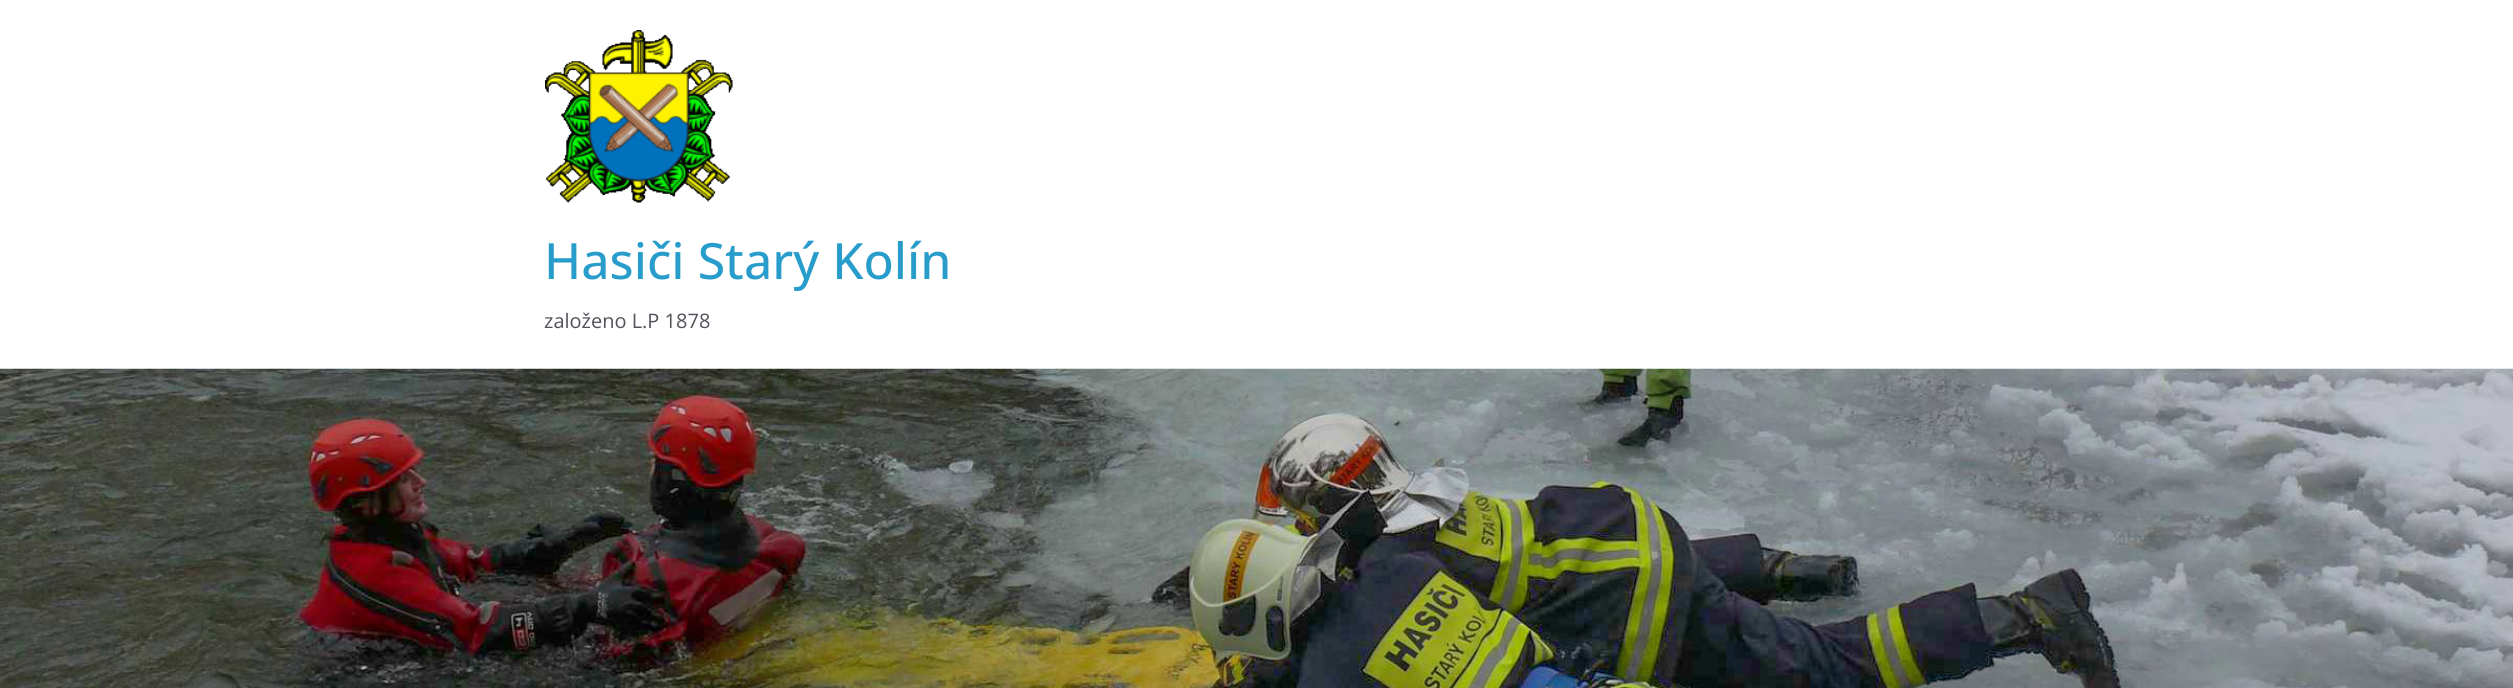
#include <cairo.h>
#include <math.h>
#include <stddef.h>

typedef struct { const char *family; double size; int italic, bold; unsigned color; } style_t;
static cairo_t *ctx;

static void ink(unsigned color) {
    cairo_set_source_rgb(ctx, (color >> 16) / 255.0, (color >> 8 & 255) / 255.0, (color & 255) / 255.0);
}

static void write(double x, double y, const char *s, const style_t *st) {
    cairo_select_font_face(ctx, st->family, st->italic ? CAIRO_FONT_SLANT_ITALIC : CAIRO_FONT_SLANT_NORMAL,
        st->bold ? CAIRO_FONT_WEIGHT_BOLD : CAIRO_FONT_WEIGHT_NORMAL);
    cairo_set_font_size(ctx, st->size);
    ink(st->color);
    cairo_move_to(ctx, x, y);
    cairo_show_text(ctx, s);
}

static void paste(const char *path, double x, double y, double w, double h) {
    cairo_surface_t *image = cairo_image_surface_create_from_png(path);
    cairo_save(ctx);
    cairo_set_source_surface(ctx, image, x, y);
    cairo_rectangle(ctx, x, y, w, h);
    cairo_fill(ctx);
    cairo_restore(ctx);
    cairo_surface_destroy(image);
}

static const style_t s1 = {"Open Sans Medium", 50, 0, 0, 0x289dcc};
static const style_t s2 = {"Open Sans", 20, 0, 0, 0x52525b};

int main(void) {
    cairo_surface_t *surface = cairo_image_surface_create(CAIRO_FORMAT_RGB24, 2513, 688);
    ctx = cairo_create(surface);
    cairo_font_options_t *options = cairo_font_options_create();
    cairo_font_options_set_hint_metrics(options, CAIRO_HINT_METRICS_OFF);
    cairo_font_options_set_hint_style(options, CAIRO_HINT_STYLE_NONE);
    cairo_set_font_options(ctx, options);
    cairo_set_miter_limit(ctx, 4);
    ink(0xffffff);
    cairo_paint(ctx);
    paste("pic1.png", 545, 30, 188, 173);
    write(544, 279, "Hasiči Starý Kolín", &s1);
    write(544, 328, "založeno L.P 1878", &s2);
    paste("pic2.png", 0, 368, 2513, 320);
    cairo_surface_write_to_png(surface, "screenshot.png");
    cairo_font_options_destroy(options);
    cairo_destroy(ctx);
    cairo_surface_destroy(surface);
    return 0;
}
